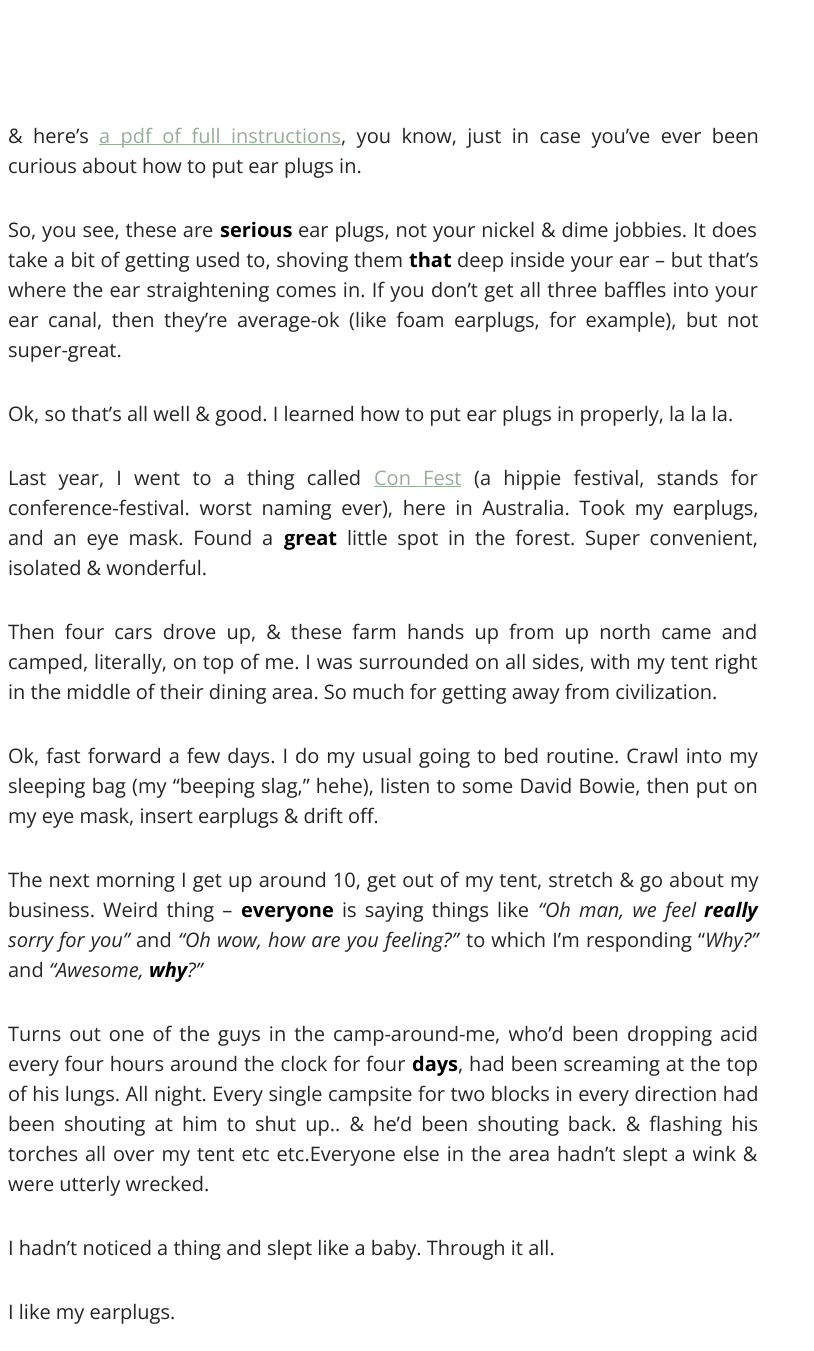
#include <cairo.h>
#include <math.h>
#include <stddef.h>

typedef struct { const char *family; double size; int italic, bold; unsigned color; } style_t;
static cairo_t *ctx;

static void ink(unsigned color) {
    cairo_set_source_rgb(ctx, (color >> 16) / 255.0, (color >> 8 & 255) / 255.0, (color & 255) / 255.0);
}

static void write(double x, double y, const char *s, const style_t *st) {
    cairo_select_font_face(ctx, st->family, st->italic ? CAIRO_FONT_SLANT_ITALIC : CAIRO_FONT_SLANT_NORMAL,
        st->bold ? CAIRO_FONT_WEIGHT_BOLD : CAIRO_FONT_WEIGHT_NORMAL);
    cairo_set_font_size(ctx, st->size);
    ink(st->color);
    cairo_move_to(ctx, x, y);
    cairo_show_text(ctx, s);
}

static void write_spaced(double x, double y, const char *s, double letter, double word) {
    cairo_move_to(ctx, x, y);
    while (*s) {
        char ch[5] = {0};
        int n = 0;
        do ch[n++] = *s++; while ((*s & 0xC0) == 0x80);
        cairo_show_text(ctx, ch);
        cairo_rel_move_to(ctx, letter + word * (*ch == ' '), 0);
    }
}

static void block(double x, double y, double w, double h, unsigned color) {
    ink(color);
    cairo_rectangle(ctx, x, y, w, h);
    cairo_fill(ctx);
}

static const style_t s1 = {"Open Sans", 20, 0, 0, 0x232623};
static const style_t s2 = {"Open Sans", 20, 0, 1, 0x000000};
static const style_t s3 = {"Open Sans", 20, 1, 1, 0x000000};
static const style_t s4 = {"Open Sans", 20, 1, 0, 0x232623};

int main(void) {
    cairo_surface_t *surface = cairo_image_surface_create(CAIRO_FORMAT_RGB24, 814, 1351);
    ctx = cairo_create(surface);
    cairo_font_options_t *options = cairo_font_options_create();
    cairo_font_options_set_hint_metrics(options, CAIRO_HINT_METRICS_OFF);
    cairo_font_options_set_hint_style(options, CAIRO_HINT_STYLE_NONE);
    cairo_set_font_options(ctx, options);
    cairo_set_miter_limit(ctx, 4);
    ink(0xffffff);
    cairo_paint(ctx);
    cairo_select_font_face(ctx, "Open Sans", CAIRO_FONT_SLANT_NORMAL, CAIRO_FONT_WEIGHT_NORMAL);
    cairo_set_font_size(ctx, 20);
    ink(0x232623);
    write_spaced(8, 143, "& here’s", 0, 5.25);
    block(99, 144, 242, 1, 0x97ad97);
    write_spaced(99, 143, "a pdf of full instructions", 0, 5.25);
    ink(0x232623);
    write_spaced(341, 143, ", you know, just in case you’ve ever been", 0, 5.25);
    write(8, 173, "curious about how to put ear plugs in.", &s1);
    write_spaced(8, 237, "So, you see, these are", 0, 0.75);
    write(220, 237, "serious", &s2);
    cairo_select_font_face(ctx, "Open Sans", CAIRO_FONT_SLANT_NORMAL, CAIRO_FONT_WEIGHT_NORMAL);
    ink(0x232623);
    write_spaced(298, 237, "ear plugs, not your nickel & dime jobbies. It does", 0, 0.75);
    write_spaced(8, 267, "take a bit of getting used to, shoving them", 0, 0.5);
    write(409, 267, "that", &s2);
    cairo_select_font_face(ctx, "Open Sans", CAIRO_FONT_SLANT_NORMAL, CAIRO_FONT_WEIGHT_NORMAL);
    ink(0x232623);
    write_spaced(457, 267, "deep inside your ear – but that’s", 0, 0.5);
    write_spaced(8, 297, "where the ear straightening comes in. If you don’t get all three baffles into your", 0, 1.1);
    write_spaced(8, 327, "ear canal, then they’re average-ok (like foam earplugs, for example), but not", 0, 4.25);
    write(8, 357, "super-great.", &s1);
    write(8, 421, "Ok, so that’s all well & good. I learned how to put ear plugs in properly, la la la.", &s1);
    write_spaced(8, 485, "Last year, I went to a thing called", 0, 7);
    ink(0x97ad97);
    write_spaced(374, 485, "Con Fest", 0, 7);
    block(374, 486, 87, 1, 0x97ad97);
    ink(0x232623);
    write_spaced(474, 485, "(a hippie festival, stands for", 0, 7);
    write_spaced(8, 515, "conference-festival. worst naming ever), here in Australia. Took my earplugs,", 0, 4.5);
    write_spaced(8, 545, "and an eye mask. Found a", 0, 4.5);
    write(284, 545, "great", &s2);
    cairo_select_font_face(ctx, "Open Sans", CAIRO_FONT_SLANT_NORMAL, CAIRO_FONT_WEIGHT_NORMAL);
    ink(0x232623);
    write_spaced(347, 545, "little spot in the forest. Super convenient,", 0, 4.5);
    write(8, 575, "isolated & wonderful.", &s1);
    write_spaced(8, 639, "Then four cars drove up, & these farm hands up from up north came and", 0, 4.9);
    write_spaced(8, 669, "camped, literally, on top of me. I was surrounded on all sides, with my tent right", 0, 0.6);
    write(8, 699, "in the middle of their dining area. So much for getting away from civilization.", &s1);
    write_spaced(8, 763, "Ok, fast forward a few days. I do my usual going to bed routine. Crawl into my", 0, 1.8);
    write_spaced(8, 793, "sleeping bag (my “beeping slag,” hehe), listen to some David Bowie, then put on", 0, 1);
    write(8, 823, "my eye mask, insert earplugs & drift off.", &s1);
    write_spaced(8, 887, "The next morning I get up around 10, get out of my tent, stretch & go about my", 0, 0.9);
    write_spaced(8, 917, "business. Weird thing –", 0, 3);
    write(241, 917, "everyone", &s2);
    cairo_select_font_face(ctx, "Open Sans", CAIRO_FONT_SLANT_NORMAL, CAIRO_FONT_WEIGHT_NORMAL);
    ink(0x232623);
    write_spaced(342, 917, "is saying things like", 0, 3);
    cairo_select_font_face(ctx, "Open Sans", CAIRO_FONT_SLANT_ITALIC, CAIRO_FONT_WEIGHT_NORMAL);
    write_spaced(538, 917, "“Oh man, we feel", 0, 3);
    write(704, 917, "really", &s3);
    cairo_select_font_face(ctx, "Open Sans", CAIRO_FONT_SLANT_ITALIC, CAIRO_FONT_WEIGHT_NORMAL);
    ink(0x232623);
    write_spaced(8, 947, "sorry for you”", 0, 1);
    write(136, 947, "and", &s1);
    cairo_select_font_face(ctx, "Open Sans", CAIRO_FONT_SLANT_ITALIC, CAIRO_FONT_WEIGHT_NORMAL);
    write_spaced(178, 947, "“Oh wow, how are you feeling?”", 0, 1);
    cairo_select_font_face(ctx, "Open Sans", CAIRO_FONT_SLANT_NORMAL, CAIRO_FONT_WEIGHT_NORMAL);
    write_spaced(466, 947, "to which I’m responding “", 0, 1);
    write(705, 947, "Why?”", &s4);
    write(8, 977, "and", &s1);
    write(49, 977, "“Awesome,", &s4);
    write(149, 977, "why", &s3);
    write(187, 977, "?”", &s4);
    cairo_select_font_face(ctx, "Open Sans", CAIRO_FONT_SLANT_NORMAL, CAIRO_FONT_WEIGHT_NORMAL);
    write_spaced(8, 1041, "Turns out one of the guys in the camp-around-me, who’d been dropping acid", 0, 2.9);
    write_spaced(8, 1071, "every four hours around the clock for four", 0, 0.75);
    write(412, 1071, "days", &s2);
    cairo_select_font_face(ctx, "Open Sans", CAIRO_FONT_SLANT_NORMAL, CAIRO_FONT_WEIGHT_NORMAL);
    ink(0x232623);
    write_spaced(458, 1071, ", had been screaming at the top", 0, 0.75);
    write_spaced(8, 1101, "of his lungs. All night. Every single campsite for two blocks in every direction had", 0, 0.4);
    write_spaced(8, 1131, "been shouting at him to shut up.. & he’d been shouting back. & flashing his", 0, 3.9);
    write_spaced(8, 1161, "torches all over my tent etc etc.Everyone else in the area hadn’t slept a wink &", 0, 1.75);
    write(8, 1191, "were utterly wrecked.", &s1);
    write(8, 1255, "I hadn’t noticed a thing and slept like a baby. Through it all.", &s1);
    write(8, 1319, "I like my earplugs.", &s1);
    cairo_surface_write_to_png(surface, "screenshot.png");
    cairo_font_options_destroy(options);
    cairo_destroy(ctx);
    cairo_surface_destroy(surface);
    return 0;
}
